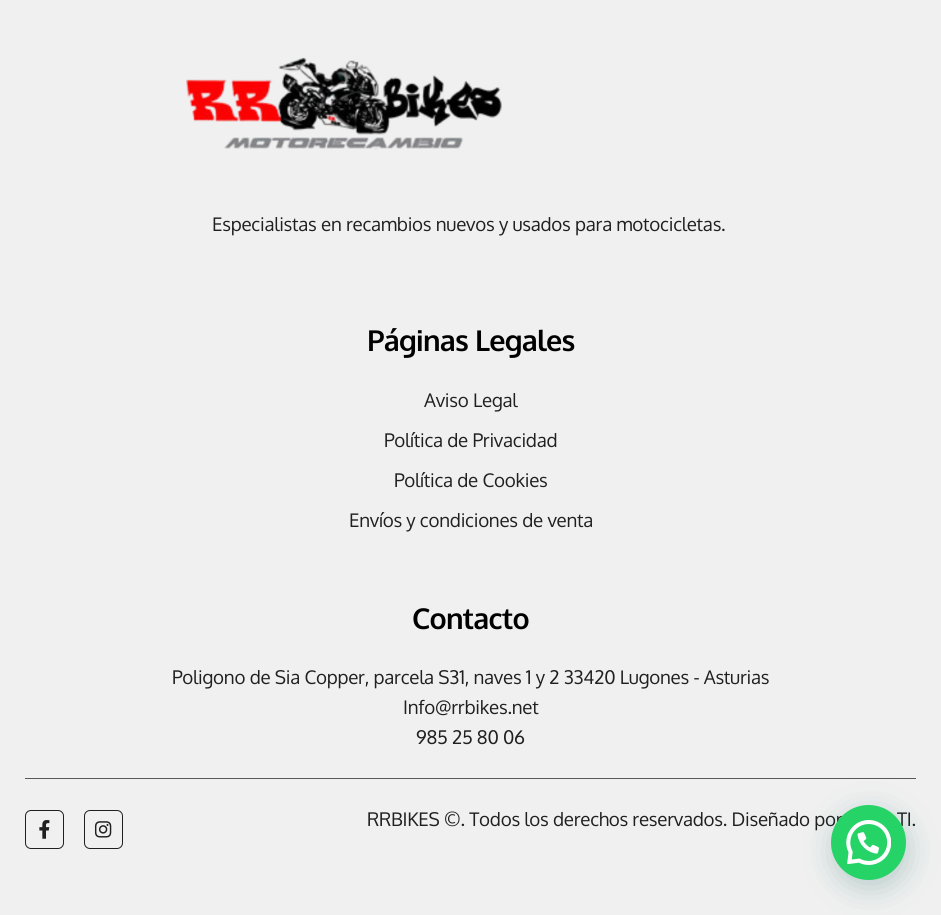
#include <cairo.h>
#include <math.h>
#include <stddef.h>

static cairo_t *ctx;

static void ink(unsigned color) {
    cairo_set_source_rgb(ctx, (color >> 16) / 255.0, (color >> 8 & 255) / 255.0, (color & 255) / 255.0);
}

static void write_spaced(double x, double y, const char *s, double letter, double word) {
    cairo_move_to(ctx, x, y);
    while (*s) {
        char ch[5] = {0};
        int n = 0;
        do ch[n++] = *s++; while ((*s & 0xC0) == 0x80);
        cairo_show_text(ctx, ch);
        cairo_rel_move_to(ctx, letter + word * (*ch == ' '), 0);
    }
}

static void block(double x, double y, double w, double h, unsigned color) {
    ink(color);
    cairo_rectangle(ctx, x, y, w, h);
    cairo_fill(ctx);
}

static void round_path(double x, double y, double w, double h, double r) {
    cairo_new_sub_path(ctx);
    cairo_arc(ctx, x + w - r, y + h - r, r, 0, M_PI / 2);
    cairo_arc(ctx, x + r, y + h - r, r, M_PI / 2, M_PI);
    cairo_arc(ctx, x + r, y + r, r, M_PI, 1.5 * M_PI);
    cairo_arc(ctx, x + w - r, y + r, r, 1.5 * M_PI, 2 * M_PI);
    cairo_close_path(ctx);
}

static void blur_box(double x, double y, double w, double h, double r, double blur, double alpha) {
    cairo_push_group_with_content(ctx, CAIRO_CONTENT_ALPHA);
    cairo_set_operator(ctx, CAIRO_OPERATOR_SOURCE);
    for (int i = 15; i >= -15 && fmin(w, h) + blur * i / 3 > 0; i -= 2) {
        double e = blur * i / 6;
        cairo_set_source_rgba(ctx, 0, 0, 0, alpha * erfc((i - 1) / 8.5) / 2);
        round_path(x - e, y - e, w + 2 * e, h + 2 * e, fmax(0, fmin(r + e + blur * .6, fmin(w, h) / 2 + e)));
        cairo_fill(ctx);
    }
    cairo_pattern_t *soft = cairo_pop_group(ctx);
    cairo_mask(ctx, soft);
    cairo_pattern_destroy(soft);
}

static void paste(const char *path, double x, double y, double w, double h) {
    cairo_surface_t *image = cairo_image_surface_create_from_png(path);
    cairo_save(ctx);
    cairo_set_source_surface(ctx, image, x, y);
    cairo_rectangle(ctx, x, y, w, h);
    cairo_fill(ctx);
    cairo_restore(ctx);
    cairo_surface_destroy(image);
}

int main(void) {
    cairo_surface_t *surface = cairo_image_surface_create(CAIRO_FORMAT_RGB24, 941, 915);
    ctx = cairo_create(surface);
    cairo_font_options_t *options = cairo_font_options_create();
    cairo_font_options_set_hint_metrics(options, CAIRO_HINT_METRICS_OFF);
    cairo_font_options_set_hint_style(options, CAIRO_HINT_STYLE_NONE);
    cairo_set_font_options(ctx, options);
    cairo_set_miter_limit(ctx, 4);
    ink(0xf0f0f0);
    cairo_paint(ctx);
    paste("pic1.png", 186, 57, 316, 93);
    cairo_select_font_face(ctx, "Oxygen", CAIRO_FONT_SLANT_NORMAL, CAIRO_FONT_WEIGHT_NORMAL);
    cairo_set_font_size(ctx, 18.75);
    ink(0x202020);
    write_spaced(212, 231, "Especialistas en recambios nuevos y usados para motocicletas.", -0.25, 0);
    cairo_select_font_face(ctx, "Oxygen", CAIRO_FONT_SLANT_NORMAL, CAIRO_FONT_WEIGHT_BOLD);
    cairo_set_font_size(ctx, 28.75);
    ink(0x000000);
    write_spaced(367, 351, "Páginas Legales", -0.75, 0);
    cairo_select_font_face(ctx, "Oxygen", CAIRO_FONT_SLANT_NORMAL, CAIRO_FONT_WEIGHT_NORMAL);
    cairo_set_font_size(ctx, 18.75);
    ink(0x202020);
    write_spaced(424, 407, "Aviso Legal", -0.25, 0);
    write_spaced(384, 447, "Política de Privacidad", -0.25, 0);
    write_spaced(394, 487, "Política de Cookies", -0.25, 0);
    write_spaced(349, 527, "Envíos y condiciones de venta", -0.25, 0);
    cairo_select_font_face(ctx, "Oxygen", CAIRO_FONT_SLANT_NORMAL, CAIRO_FONT_WEIGHT_BOLD);
    cairo_set_font_size(ctx, 28.75);
    ink(0x000000);
    write_spaced(412, 629, "Contacto", -0.75, 0);
    cairo_select_font_face(ctx, "Oxygen", CAIRO_FONT_SLANT_NORMAL, CAIRO_FONT_WEIGHT_NORMAL);
    cairo_set_font_size(ctx, 18.75);
    ink(0x202020);
    write_spaced(172, 684, "Poligono de Sia Copper, parcela S31, naves 1 y 2 33420 Lugones - Asturias", -0.25, 0);
    write_spaced(403, 714, "Info@rrbikes.net", -0.25, 0);
    write_spaced(416, 744, "985 25 80 06", -0.25, 0);
    block(25, 778, 891, 1, 0x585858);
    round_path(25.5, 810.5, 38, 38, 5.5);
    ink(0x202020);
    cairo_set_line_width(ctx, 1);
    cairo_stroke(ctx);
    paste("pic2.png", 39, 820, 11, 19);
    round_path(84.5, 810.5, 38, 38, 5.5);
    cairo_stroke(ctx);
    paste("pic3.png", 94, 821, 18, 17);
    write_spaced(367, 826, "RRBIKES ©. Todos los derechos reservados. Diseñado por", -0.25, 0);
    write_spaced(897, 826, "TI.", -0.25, 0);
    ink(0x075e54);
    blur_box(833, 813, 75, 75, 37.5, 15, 0.24);
    ink(0x25d366);
    cairo_arc(ctx, 868.5, 842.5, 37.5, 0, 2 * M_PI);
    cairo_fill(ctx);
    paste("pic4.png", 846, 820, 45, 45);
    cairo_surface_write_to_png(surface, "screenshot.png");
    cairo_font_options_destroy(options);
    cairo_destroy(ctx);
    cairo_surface_destroy(surface);
    return 0;
}
